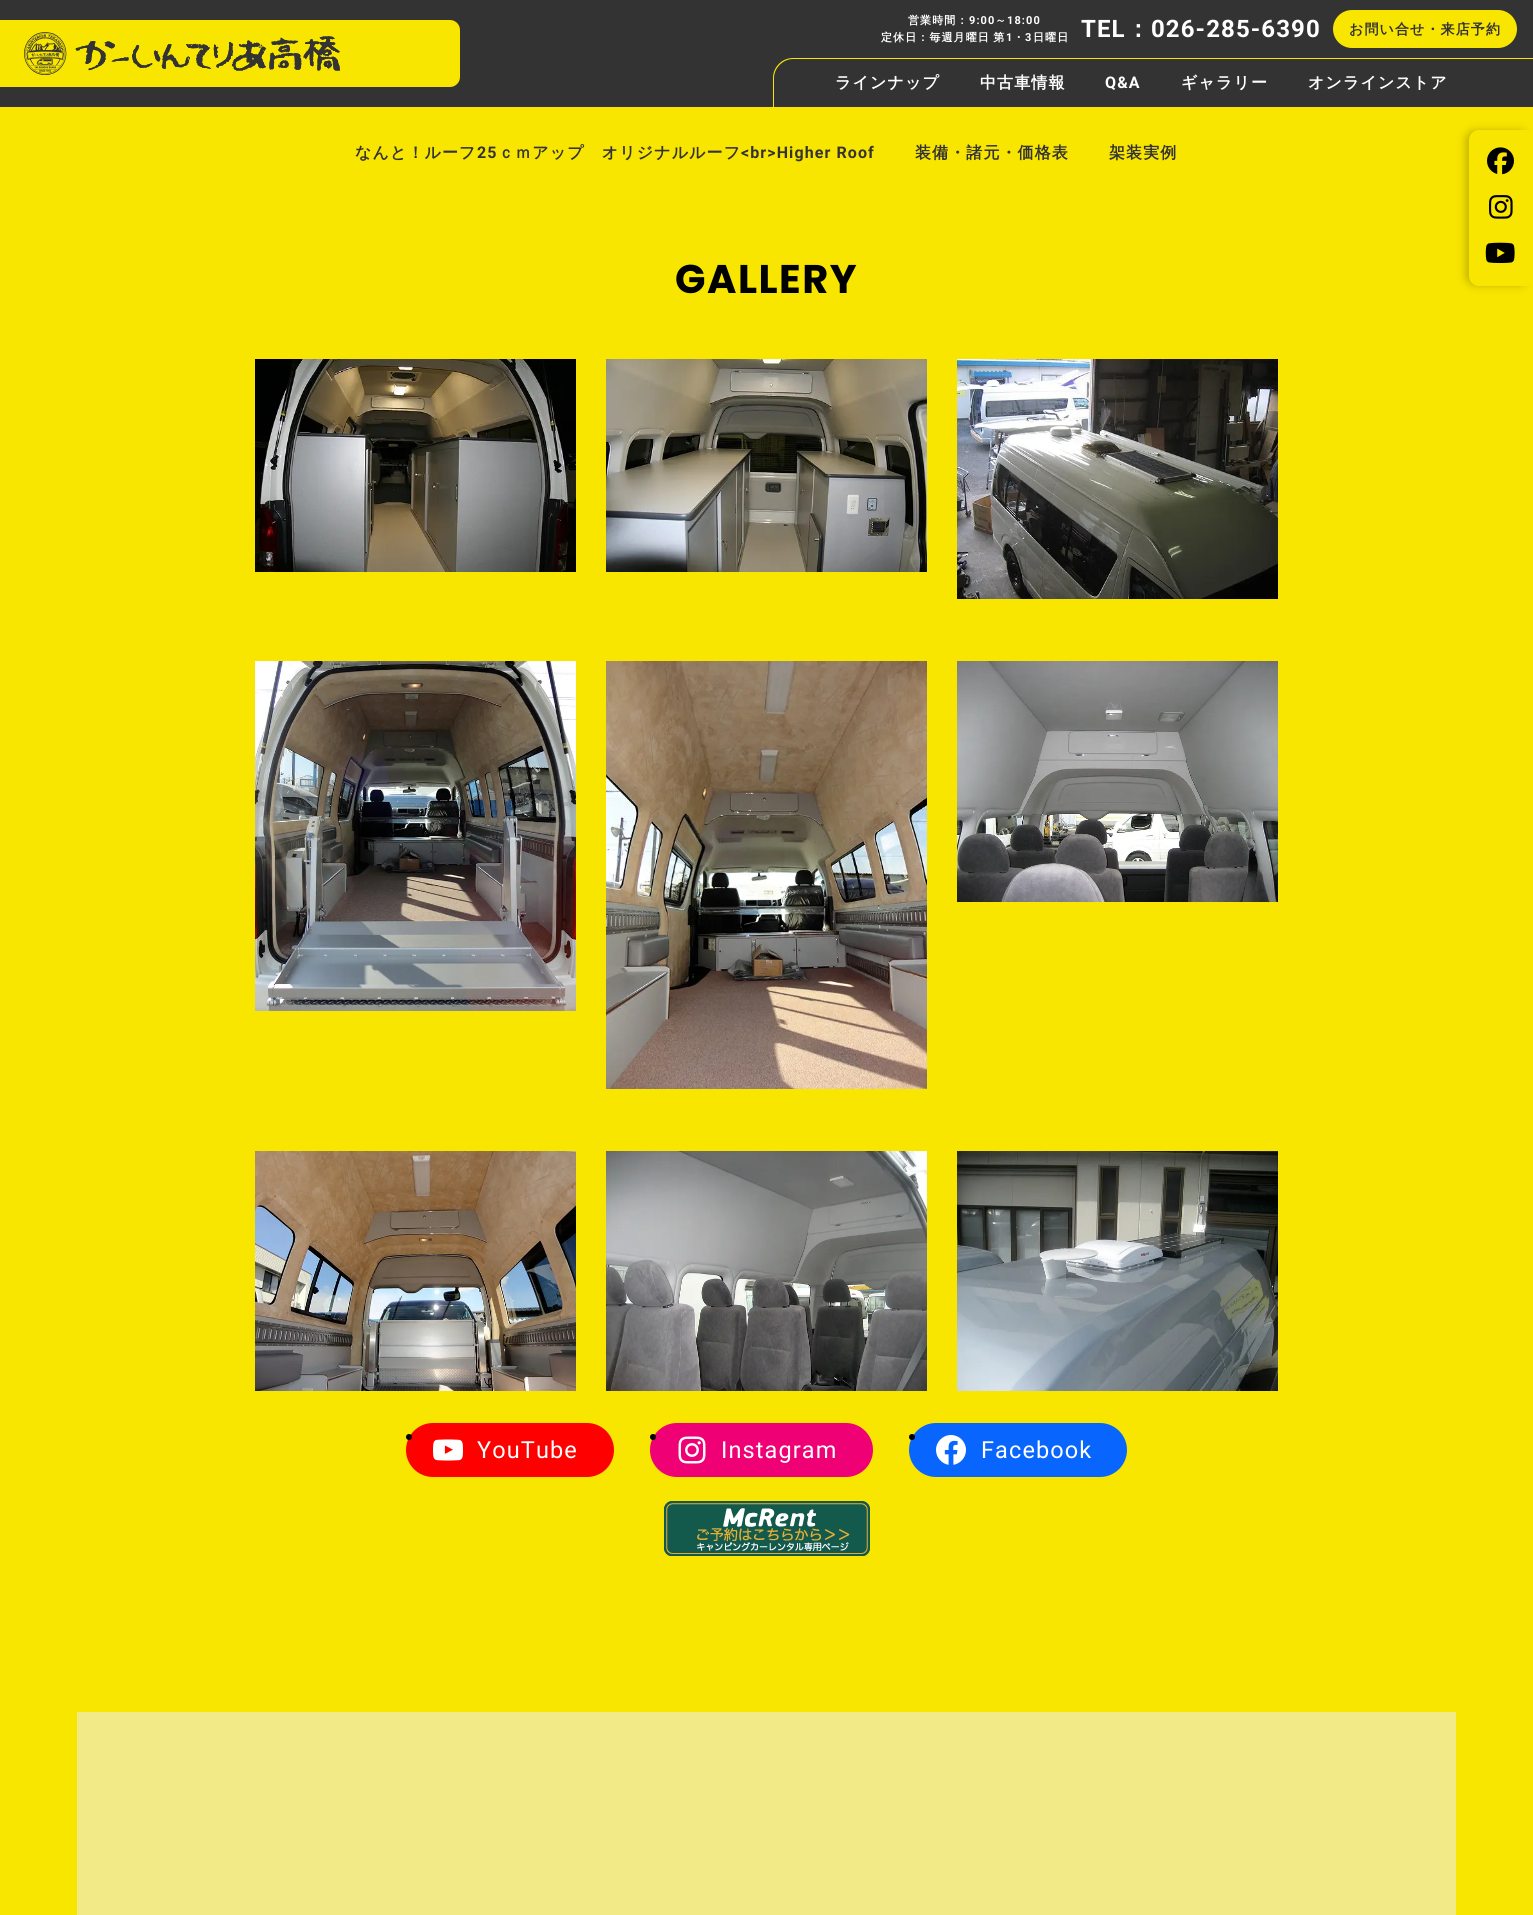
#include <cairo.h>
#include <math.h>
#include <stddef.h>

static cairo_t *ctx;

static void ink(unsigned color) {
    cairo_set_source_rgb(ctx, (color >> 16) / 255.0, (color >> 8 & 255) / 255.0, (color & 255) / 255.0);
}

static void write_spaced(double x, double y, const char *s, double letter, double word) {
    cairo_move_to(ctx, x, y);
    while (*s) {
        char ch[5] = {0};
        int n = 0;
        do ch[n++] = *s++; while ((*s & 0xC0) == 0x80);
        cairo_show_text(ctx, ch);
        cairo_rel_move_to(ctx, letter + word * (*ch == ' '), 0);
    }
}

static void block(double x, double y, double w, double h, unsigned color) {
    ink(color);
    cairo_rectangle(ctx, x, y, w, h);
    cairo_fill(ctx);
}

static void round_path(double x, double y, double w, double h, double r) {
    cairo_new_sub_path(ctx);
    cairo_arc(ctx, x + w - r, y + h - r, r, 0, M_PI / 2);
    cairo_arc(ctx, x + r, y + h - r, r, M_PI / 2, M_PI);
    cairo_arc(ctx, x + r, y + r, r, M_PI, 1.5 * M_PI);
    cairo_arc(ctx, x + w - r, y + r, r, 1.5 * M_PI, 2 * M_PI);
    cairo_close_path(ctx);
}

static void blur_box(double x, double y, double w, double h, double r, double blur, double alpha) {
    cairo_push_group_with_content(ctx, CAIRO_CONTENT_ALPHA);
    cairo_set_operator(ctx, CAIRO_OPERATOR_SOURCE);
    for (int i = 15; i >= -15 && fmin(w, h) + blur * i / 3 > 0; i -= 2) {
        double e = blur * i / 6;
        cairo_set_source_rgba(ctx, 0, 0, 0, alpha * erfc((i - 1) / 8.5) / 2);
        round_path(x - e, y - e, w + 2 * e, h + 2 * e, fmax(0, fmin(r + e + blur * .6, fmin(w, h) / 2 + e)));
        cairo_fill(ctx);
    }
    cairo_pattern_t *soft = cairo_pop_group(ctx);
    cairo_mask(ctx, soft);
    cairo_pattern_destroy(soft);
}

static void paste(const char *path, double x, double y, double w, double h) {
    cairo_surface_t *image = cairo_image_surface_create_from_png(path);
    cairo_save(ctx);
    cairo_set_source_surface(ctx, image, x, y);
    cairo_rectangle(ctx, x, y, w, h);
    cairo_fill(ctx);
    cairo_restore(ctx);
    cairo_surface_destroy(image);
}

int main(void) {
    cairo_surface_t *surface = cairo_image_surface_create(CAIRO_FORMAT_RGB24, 1533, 1915);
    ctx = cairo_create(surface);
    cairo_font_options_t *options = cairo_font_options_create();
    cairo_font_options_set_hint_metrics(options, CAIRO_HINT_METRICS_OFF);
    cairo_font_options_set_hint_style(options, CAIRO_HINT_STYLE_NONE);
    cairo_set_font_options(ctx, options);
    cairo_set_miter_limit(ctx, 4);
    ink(0xf8e500);
    cairo_paint(ctx);
    block(0, 0, 1533, 107, 0x333333);
    ink(0xf8e500);
    cairo_new_path(ctx);
    cairo_move_to(ctx, 0, 20);
    cairo_line_to(ctx, 450, 20);
    cairo_curve_to(ctx, 455.5, 20, 460, 24.5, 460, 30);
    cairo_line_to(ctx, 460, 77);
    cairo_curve_to(ctx, 460, 82.5, 455.5, 87, 450, 87);
    cairo_line_to(ctx, 0, 87);
    cairo_close_path(ctx);
    cairo_fill(ctx);
    paste("pic1.png", 24, 32, 316, 43);
    cairo_select_font_face(ctx, "WenQuanYi Zen Hei", CAIRO_FONT_SLANT_NORMAL, CAIRO_FONT_WEIGHT_BOLD);
    cairo_set_font_size(ctx, 11);
    ink(0xffffff);
    write_spaced(908, 24, "営業時間：", 1.1, 0);
    cairo_select_font_face(ctx, "Roboto", CAIRO_FONT_SLANT_NORMAL, CAIRO_FONT_WEIGHT_BOLD);
    write_spaced(969, 24, "9:00", 1.1, 0);
    cairo_select_font_face(ctx, "WenQuanYi Zen Hei", CAIRO_FONT_SLANT_NORMAL, CAIRO_FONT_WEIGHT_BOLD);
    write_spaced(995, 24, "～", 1.1, 0);
    cairo_select_font_face(ctx, "Roboto", CAIRO_FONT_SLANT_NORMAL, CAIRO_FONT_WEIGHT_BOLD);
    write_spaced(1007, 24, "18:00", 1.1, 0);
    cairo_select_font_face(ctx, "WenQuanYi Zen Hei", CAIRO_FONT_SLANT_NORMAL, CAIRO_FONT_WEIGHT_BOLD);
    write_spaced(881, 41, "定休日：毎週月曜日 第", 1.1, -1);
    cairo_select_font_face(ctx, "Roboto", CAIRO_FONT_SLANT_NORMAL, CAIRO_FONT_WEIGHT_BOLD);
    write_spaced(1006, 41, "1", 1.1, 0);
    cairo_select_font_face(ctx, "WenQuanYi Zen Hei", CAIRO_FONT_SLANT_NORMAL, CAIRO_FONT_WEIGHT_BOLD);
    write_spaced(1013, 41, "・", 1.1, 0);
    cairo_select_font_face(ctx, "Roboto", CAIRO_FONT_SLANT_NORMAL, CAIRO_FONT_WEIGHT_BOLD);
    write_spaced(1025, 41, "3", 1.1, 0);
    cairo_select_font_face(ctx, "WenQuanYi Zen Hei", CAIRO_FONT_SLANT_NORMAL, CAIRO_FONT_WEIGHT_BOLD);
    write_spaced(1033, 41, "日曜日", 1.1, 0);
    cairo_select_font_face(ctx, "Roboto", CAIRO_FONT_SLANT_NORMAL, CAIRO_FONT_WEIGHT_BOLD);
    cairo_set_font_size(ctx, 24);
    write_spaced(1081, 37, "TEL", 1.1, 0);
    cairo_select_font_face(ctx, "WenQuanYi Zen Hei", CAIRO_FONT_SLANT_NORMAL, CAIRO_FONT_WEIGHT_BOLD);
    write_spaced(1126, 37, "：", 1.1, 0);
    cairo_select_font_face(ctx, "Roboto", CAIRO_FONT_SLANT_NORMAL, CAIRO_FONT_WEIGHT_BOLD);
    write_spaced(1151, 37, "026-285-6390", 1.1, 0);
    ink(0xf8e500);
    round_path(1334, 11, 182, 36, 18);
    cairo_fill_preserve(ctx);
    cairo_stroke(ctx);
    cairo_select_font_face(ctx, "WenQuanYi Zen Hei", CAIRO_FONT_SLANT_NORMAL, CAIRO_FONT_WEIGHT_BOLD);
    cairo_set_font_size(ctx, 14);
    ink(0x333333);
    write_spaced(1349, 34, "お問い合せ・来店予約", 1.1, 0);
    ink(0xf8e500);
    cairo_set_fill_rule(ctx, CAIRO_FILL_RULE_EVEN_ODD);
    cairo_new_path(ctx);
    cairo_move_to(ctx, 793, 58);
    cairo_line_to(ctx, 1533, 58);
    cairo_line_to(ctx, 1533, 107);
    cairo_line_to(ctx, 773, 107);
    cairo_line_to(ctx, 773, 78);
    cairo_curve_to(ctx, 773, 67, 782, 58, 793, 58);
    cairo_close_path(ctx);
    cairo_move_to(ctx, 793, 59);
    cairo_line_to(ctx, 1533, 59);
    cairo_line_to(ctx, 1533, 107);
    cairo_line_to(ctx, 774, 107);
    cairo_line_to(ctx, 774, 78);
    cairo_curve_to(ctx, 774, 68, 783, 59, 793, 59);
    cairo_close_path(ctx);
    cairo_fill(ctx);
    cairo_set_font_size(ctx, 16);
    ink(0xffffff);
    write_spaced(835, 88, "ラインナップ", 1.1, 0);
    write_spaced(980, 88, "中古車情報", 1.1, 0);
    cairo_select_font_face(ctx, "Roboto", CAIRO_FONT_SLANT_NORMAL, CAIRO_FONT_WEIGHT_BOLD);
    write_spaced(1105, 88, "Q&A", 1.1, 0);
    cairo_select_font_face(ctx, "WenQuanYi Zen Hei", CAIRO_FONT_SLANT_NORMAL, CAIRO_FONT_WEIGHT_BOLD);
    write_spaced(1181, 88, "ギャラリー", 1.1, 0);
    write_spaced(1308, 88, "オンラインストア", 1.1, 0);
    ink(0x000000);
    blur_box(1465, 130, 64, 156, 10, 4, 0.2);
    ink(0xf8e500);
    cairo_new_path(ctx);
    cairo_move_to(ctx, 1479, 130);
    cairo_line_to(ctx, 1533, 130);
    cairo_line_to(ctx, 1533, 286);
    cairo_line_to(ctx, 1479, 286);
    cairo_curve_to(ctx, 1473.5, 286, 1469, 281.5, 1469, 276);
    cairo_line_to(ctx, 1469, 140);
    cairo_curve_to(ctx, 1469, 134.5, 1473.5, 130, 1479, 130);
    cairo_close_path(ctx);
    cairo_fill(ctx);
    paste("pic2.png", 1487, 147, 27, 28);
    paste("pic3.png", 1489, 195, 24, 24);
    paste("pic4.png", 1485, 242, 30, 21);
    ink(0x333333);
    write_spaced(355, 158, "なんと！ルーフ", 1.1, 0);
    cairo_select_font_face(ctx, "Roboto", CAIRO_FONT_SLANT_NORMAL, CAIRO_FONT_WEIGHT_BOLD);
    write_spaced(477, 158, "25", 1.1, 0);
    cairo_select_font_face(ctx, "WenQuanYi Zen Hei", CAIRO_FONT_SLANT_NORMAL, CAIRO_FONT_WEIGHT_BOLD);
    write_spaced(498, 158, "ｃｍアップ　オリジナルルーフ", 1.1, 0);
    cairo_select_font_face(ctx, "Roboto", CAIRO_FONT_SLANT_NORMAL, CAIRO_FONT_WEIGHT_BOLD);
    write_spaced(741, 158, "<br>Higher Roof", 1.1, 0);
    cairo_select_font_face(ctx, "WenQuanYi Zen Hei", CAIRO_FONT_SLANT_NORMAL, CAIRO_FONT_WEIGHT_BOLD);
    write_spaced(915, 158, "装備・諸元・価格表", 1.1, 0);
    write_spaced(1109, 158, "架装実例", 1.1, 0);
    cairo_select_font_face(ctx, "Poppins", CAIRO_FONT_SLANT_NORMAL, CAIRO_FONT_WEIGHT_BOLD);
    cairo_set_font_size(ctx, 40);
    ink(0x000000);
    write_spaced(675, 293, "GALLERY", 1.5, 0);
    paste("pic5.png", 255, 359, 321, 213);
    paste("pic6.png", 606, 359, 321, 213);
    paste("pic7.png", 957, 359, 321, 240);
    paste("pic8.png", 255, 661, 321, 350);
    paste("pic9.png", 606, 661, 321, 428);
    paste("pic10.png", 957, 661, 321, 241);
    paste("pic11.png", 255, 1151, 321, 240);
    paste("pic12.png", 606, 1151, 321, 240);
    paste("pic13.png", 957, 1151, 321, 240);
    ink(0xff0000);
    round_path(406, 1423, 208, 54, 27);
    cairo_fill(ctx);
    ink(0x000000);
    cairo_arc(ctx, 409, 1437, 3, 0, 2 * M_PI);
    cairo_fill(ctx);
    paste("pic14.png", 433, 1439, 30, 22);
    cairo_select_font_face(ctx, "Roboto", CAIRO_FONT_SLANT_NORMAL, CAIRO_FONT_WEIGHT_NORMAL);
    cairo_set_font_size(ctx, 23.5);
    ink(0xffffff);
    write_spaced(477, 1458, "YouTube", 1.1, 0);
    ink(0xf00075);
    round_path(650, 1423, 223, 54, 27);
    cairo_fill(ctx);
    ink(0x000000);
    cairo_arc(ctx, 653, 1437, 3, 0, 2 * M_PI);
    cairo_fill(ctx);
    paste("pic15.png", 678, 1436, 28, 28);
    ink(0xffffff);
    write_spaced(721, 1458, "Instagram", 1.1, 0);
    ink(0x0866ff);
    round_path(909, 1423, 218, 54, 27);
    cairo_fill(ctx);
    ink(0x000000);
    cairo_arc(ctx, 912, 1437, 3, 0, 2 * M_PI);
    cairo_fill(ctx);
    paste("pic16.png", 936, 1435, 30, 30);
    ink(0xffffff);
    write_spaced(981, 1458, "Facebook", 1.1, 0);
    paste("pic17.png", 664, 1501, 206, 55);
    block(77, 1712, 1379, 203, 0xf2ea86);
    cairo_surface_write_to_png(surface, "screenshot.png");
    cairo_font_options_destroy(options);
    cairo_destroy(ctx);
    cairo_surface_destroy(surface);
    return 0;
}
